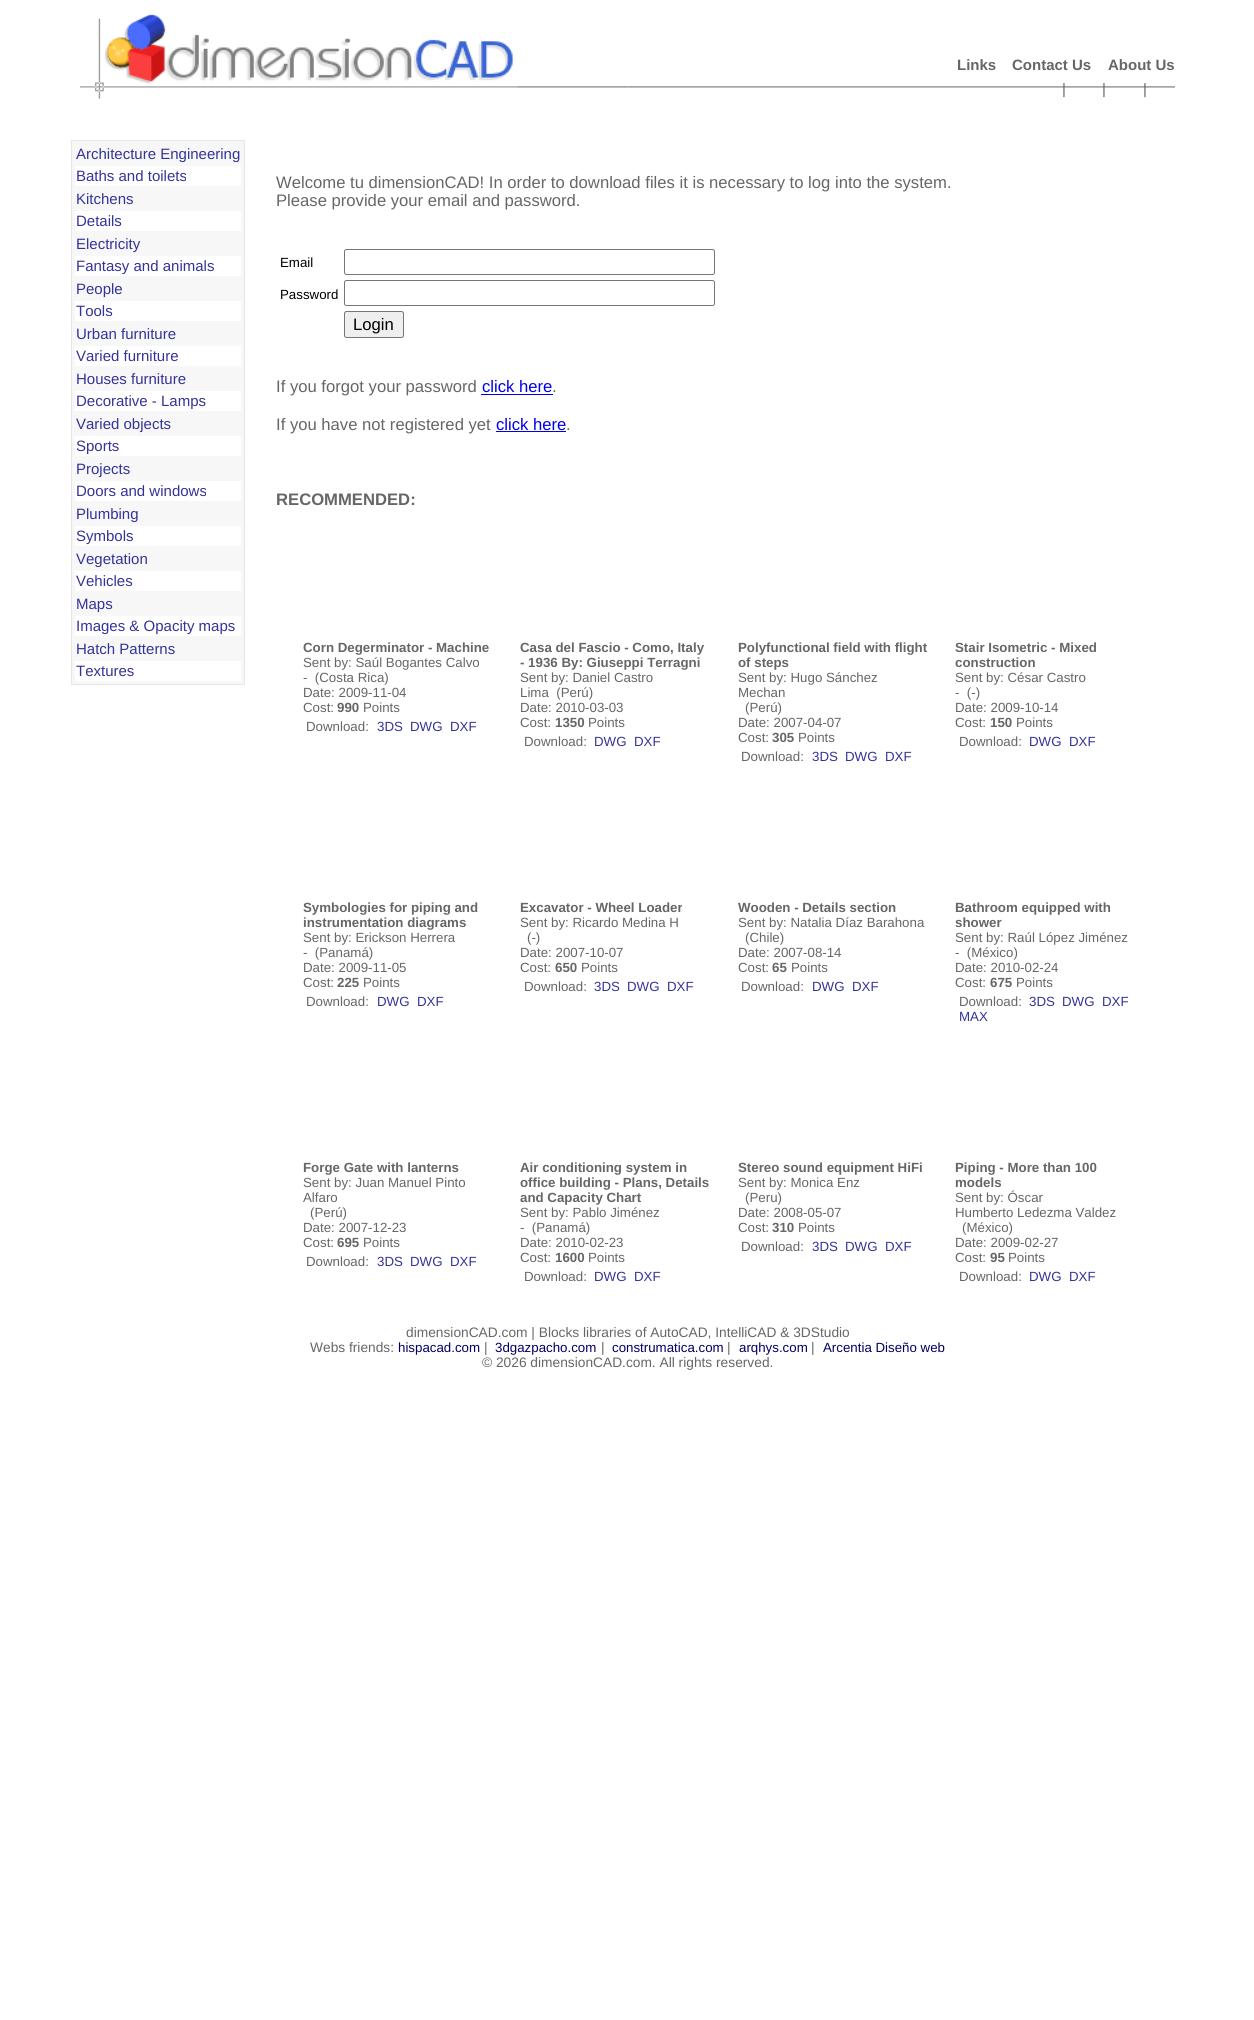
#include <cairo.h>
#include <math.h>
#include <stddef.h>

typedef struct { const char *family; double size; int italic, bold; unsigned color; } style_t;
static cairo_t *ctx;

static void ink(unsigned color) {
    cairo_set_source_rgb(ctx, (color >> 16) / 255.0, (color >> 8 & 255) / 255.0, (color & 255) / 255.0);
}

static void write(double x, double y, const char *s, const style_t *st) {
    cairo_select_font_face(ctx, st->family, st->italic ? CAIRO_FONT_SLANT_ITALIC : CAIRO_FONT_SLANT_NORMAL,
        st->bold ? CAIRO_FONT_WEIGHT_BOLD : CAIRO_FONT_WEIGHT_NORMAL);
    cairo_set_font_size(ctx, st->size);
    ink(st->color);
    cairo_move_to(ctx, x, y);
    cairo_show_text(ctx, s);
}

static void block(double x, double y, double w, double h, unsigned color) {
    ink(color);
    cairo_rectangle(ctx, x, y, w, h);
    cairo_fill(ctx);
}

static void round_path(double x, double y, double w, double h, double r) {
    cairo_new_sub_path(ctx);
    cairo_arc(ctx, x + w - r, y + h - r, r, 0, M_PI / 2);
    cairo_arc(ctx, x + r, y + h - r, r, M_PI / 2, M_PI);
    cairo_arc(ctx, x + r, y + r, r, M_PI, 1.5 * M_PI);
    cairo_arc(ctx, x + w - r, y + r, r, 1.5 * M_PI, 2 * M_PI);
    cairo_close_path(ctx);
}

static void paste(const char *path, double x, double y, double w, double h) {
    cairo_surface_t *image = cairo_image_surface_create_from_png(path);
    cairo_save(ctx);
    cairo_set_source_surface(ctx, image, x, y);
    cairo_rectangle(ctx, x, y, w, h);
    cairo_fill(ctx);
    cairo_restore(ctx);
    cairo_surface_destroy(image);
}

static const style_t s1 = {"Liberation Sans", 15, 0, 1, 0x666666};
static const style_t s2 = {"Liberation Sans", 15, 0, 0, 0x666666};
static const style_t s3 = {"Liberation Sans", 15, 0, 0, 0x333399};
static const style_t s4 = {"Liberation Sans", 16.65, 0, 0, 0x666666};
static const style_t s5 = {"Liberation Sans", 13.3, 0, 0, 0x000000};
static const style_t s6 = {"Liberation Sans", 16.65, 0, 0, 0x000000};
static const style_t s7 = {"Liberation Sans", 16.65, 0, 0, 0x0000ee};
static const style_t s8 = {"Liberation Sans", 16.65, 0, 1, 0x666666};
static const style_t s9 = {"Liberation Sans", 13.3, 0, 1, 0x666666};
static const style_t s10 = {"Liberation Sans", 13.3, 0, 0, 0x666666};
static const style_t s11 = {"Liberation Sans", 13.3, 0, 0, 0x333399};
static const style_t s12 = {"Liberation Sans", 13.75, 0, 0, 0x666666};
static const style_t s13 = {"Liberation Sans", 13.3, 0, 0, 0x000066};

int main(void) {
    cairo_surface_t *surface = cairo_image_surface_create(CAIRO_FORMAT_RGB24, 1254, 2020);
    ctx = cairo_create(surface);
    cairo_font_options_t *options = cairo_font_options_create();
    cairo_font_options_set_hint_metrics(options, CAIRO_HINT_METRICS_OFF);
    cairo_font_options_set_hint_style(options, CAIRO_HINT_STYLE_NONE);
    cairo_set_font_options(ctx, options);
    cairo_set_miter_limit(ctx, 4);
    ink(0xffffff);
    cairo_paint(ctx);
    paste("pic1.png", 517, 86, 111, 2);
    paste("pic2.png", 80, 13, 438, 86);
    paste("pic3.png", 627, 86, 548, 2);
    write(957, 70, "Links", &s1);
    write(1012, 70, "Contact Us", &s1);
    write(1108, 70, "About Us", &s1);
    write(1062, 94, "|", &s2);
    write(1102, 94, "|", &s2);
    write(1143, 94, "|", &s2);
    ink(0xf7f7f7);
    cairo_rectangle(ctx, 71.5, 140.5, 173, 544);
    cairo_fill_preserve(ctx);
    ink(0xe6e6e6);
    cairo_set_line_width(ctx, 1);
    cairo_stroke(ctx);
    write(76, 159, "Architecture Engineering", &s3);
    block(75, 166, 166, 20, 0xffffff);
    write(76, 181, "Baths and toilets", &s3);
    write(76, 204, "Kitchens", &s3);
    block(75, 211, 166, 20, 0xffffff);
    write(76, 226, "Details", &s3);
    write(76, 249, "Electricity", &s3);
    block(75, 256, 166, 20, 0xffffff);
    write(76, 271, "Fantasy and animals", &s3);
    write(76, 294, "People", &s3);
    block(75, 301, 166, 20, 0xffffff);
    write(76, 316, "Tools", &s3);
    write(76, 339, "Urban furniture", &s3);
    block(75, 346, 166, 20, 0xffffff);
    write(76, 361, "Varied furniture", &s3);
    write(76, 384, "Houses furniture", &s3);
    block(75, 391, 166, 20, 0xffffff);
    write(76, 406, "Decorative - Lamps", &s3);
    write(76, 429, "Varied objects", &s3);
    block(75, 436, 166, 20, 0xffffff);
    write(76, 451, "Sports", &s3);
    write(76, 474, "Projects", &s3);
    block(75, 481, 166, 20, 0xffffff);
    write(76, 496, "Doors and windows", &s3);
    write(76, 519, "Plumbing", &s3);
    block(75, 526, 166, 20, 0xffffff);
    write(76, 541, "Symbols", &s3);
    write(76, 564, "Vegetation", &s3);
    block(75, 571, 166, 20, 0xffffff);
    write(76, 586, "Vehicles", &s3);
    write(76, 609, "Maps", &s3);
    block(75, 616, 166, 20, 0xffffff);
    write(76, 631, "Images & Opacity maps", &s3);
    write(76, 654, "Hatch Patterns", &s3);
    block(75, 661, 166, 20, 0xffffff);
    write(76, 676, "Textures", &s3);
    write(276, 188, "Welcome tu dimensionCAD! In order to download files it is necessary to log into the system.", &s4);
    write(276, 206, "Please provide your email and password.", &s4);
    write(280, 267, "Email", &s5);
    round_path(344.5, 249.5, 370, 25, 2);
    ink(0x767676);
    cairo_stroke(ctx);
    write(280, 299, "Password", &s5);
    round_path(344.5, 280.5, 370, 25, 2);
    ink(0x767676);
    cairo_stroke(ctx);
    ink(0xefefef);
    round_path(344.5, 311.5, 59, 26, 2);
    cairo_fill_preserve(ctx);
    ink(0x767676);
    cairo_stroke(ctx);
    write(353, 330, "Login", &s6);
    write(276, 392, "If you forgot your password", &s4);
    write(482, 392, "click here", &s7);
    block(481, 394, 72, 1, 0x0000ee);
    write(552, 392, ".", &s4);
    write(276, 430, "If you have not registered yet", &s4);
    write(496, 430, "click here", &s7);
    block(496, 431, 70, 1, 0x0000ee);
    write(566, 430, ".", &s4);
    write(276, 505, "RECOMMENDED:", &s8);
    write(303, 652, "Corn Degerminator - Machine", &s9);
    write(303, 667, "Sent by: Saúl Bogantes Calvo", &s10);
    write(303, 682, "-  (Costa Rica)", &s10);
    write(303, 697, "Date: 2009-11-04", &s10);
    write(303, 712, "Cost:", &s10);
    write(337, 712, "990", &s9);
    write(363, 712, "Points", &s10);
    write(306, 731, "Download:", &s10);
    write(377, 731, "3DS", &s11);
    write(410, 731, "DWG", &s11);
    write(450, 731, "DXF", &s11);
    write(520, 652, "Casa del Fascio - Como, Italy", &s9);
    write(520, 667, "- 1936 By: Giuseppi Terragni", &s9);
    write(520, 682, "Sent by: Daniel Castro", &s10);
    write(520, 697, "Lima  (Perú)", &s10);
    write(520, 712, "Date: 2010-03-03", &s10);
    write(520, 727, "Cost:", &s10);
    write(555, 727, "1350", &s9);
    write(588, 727, "Points", &s10);
    write(524, 746, "Download:", &s10);
    write(594, 746, "DWG", &s11);
    write(634, 746, "DXF", &s11);
    write(738, 652, "Polyfunctional field with flight", &s9);
    write(738, 667, "of steps", &s9);
    write(738, 682, "Sent by: Hugo Sánchez", &s10);
    write(738, 697, "Mechan", &s10);
    write(745, 712, "(Perú)", &s10);
    write(738, 727, "Date: 2007-04-07", &s10);
    write(738, 742, "Cost:", &s10);
    write(772, 742, "305", &s9);
    write(798, 742, "Points", &s10);
    write(741, 761, "Download:", &s10);
    write(812, 761, "3DS", &s11);
    write(845, 761, "DWG", &s11);
    write(885, 761, "DXF", &s11);
    write(955, 652, "Stair Isometric - Mixed", &s9);
    write(955, 667, "construction", &s9);
    write(955, 682, "Sent by: César Castro", &s10);
    write(955, 697, "-  (-)", &s10);
    write(955, 712, "Date: 2009-10-14", &s10);
    write(955, 727, "Cost:", &s10);
    write(990, 727, "150", &s9);
    write(1016, 727, "Points", &s10);
    write(959, 746, "Download:", &s10);
    write(1029, 746, "DWG", &s11);
    write(1069, 746, "DXF", &s11);
    write(303, 912, "Symbologies for piping and", &s9);
    write(303, 927, "instrumentation diagrams", &s9);
    write(303, 942, "Sent by: Erickson Herrera", &s10);
    write(303, 957, "-  (Panamá)", &s10);
    write(303, 972, "Date: 2009-11-05", &s10);
    write(303, 987, "Cost:", &s10);
    write(337, 987, "225", &s9);
    write(363, 987, "Points", &s10);
    write(306, 1006, "Download:", &s10);
    write(377, 1006, "DWG", &s11);
    write(417, 1006, "DXF", &s11);
    write(520, 912, "Excavator - Wheel Loader", &s9);
    write(520, 927, "Sent by: Ricardo Medina H", &s10);
    write(527, 942, "(-)", &s10);
    write(520, 957, "Date: 2007-10-07", &s10);
    write(520, 972, "Cost:", &s10);
    write(555, 972, "650", &s9);
    write(581, 972, "Points", &s10);
    write(524, 991, "Download:", &s10);
    write(594, 991, "3DS", &s11);
    write(627, 991, "DWG", &s11);
    write(667, 991, "DXF", &s11);
    write(738, 912, "Wooden - Details section", &s9);
    write(738, 927, "Sent by: Natalia Díaz Barahona", &s10);
    write(745, 942, "(Chile)", &s10);
    write(738, 957, "Date: 2007-08-14", &s10);
    write(738, 972, "Cost:", &s10);
    write(772, 972, "65", &s9);
    write(791, 972, "Points", &s10);
    write(741, 991, "Download:", &s10);
    write(812, 991, "DWG", &s11);
    write(852, 991, "DXF", &s11);
    write(955, 912, "Bathroom equipped with", &s9);
    write(955, 927, "shower", &s9);
    write(955, 942, "Sent by: Raúl López Jiménez", &s10);
    write(955, 957, "-  (México)", &s10);
    write(955, 972, "Date: 2010-02-24", &s10);
    write(955, 987, "Cost:", &s10);
    write(990, 987, "675", &s9);
    write(1016, 987, "Points", &s10);
    write(959, 1006, "Download:", &s10);
    write(1029, 1006, "3DS", &s11);
    write(1062, 1006, "DWG", &s11);
    write(1102, 1006, "DXF", &s11);
    write(959, 1021, "MAX", &s11);
    write(303, 1172, "Forge Gate with lanterns", &s9);
    write(303, 1187, "Sent by: Juan Manuel Pinto", &s10);
    write(303, 1202, "Alfaro", &s10);
    write(310, 1217, "(Perú)", &s10);
    write(303, 1232, "Date: 2007-12-23", &s10);
    write(303, 1247, "Cost:", &s10);
    write(337, 1247, "695", &s9);
    write(363, 1247, "Points", &s10);
    write(306, 1266, "Download:", &s10);
    write(377, 1266, "3DS", &s11);
    write(410, 1266, "DWG", &s11);
    write(450, 1266, "DXF", &s11);
    write(520, 1172, "Air conditioning system in", &s9);
    write(520, 1187, "office building - Plans, Details", &s9);
    write(520, 1202, "and Capacity Chart", &s9);
    write(520, 1217, "Sent by: Pablo Jiménez", &s10);
    write(520, 1232, "-  (Panamá)", &s10);
    write(520, 1247, "Date: 2010-02-23", &s10);
    write(520, 1262, "Cost:", &s10);
    write(555, 1262, "1600", &s9);
    write(588, 1262, "Points", &s10);
    write(524, 1281, "Download:", &s10);
    write(594, 1281, "DWG", &s11);
    write(634, 1281, "DXF", &s11);
    write(738, 1172, "Stereo sound equipment HiFi", &s9);
    write(738, 1187, "Sent by: Monica Enz", &s10);
    write(745, 1202, "(Peru)", &s10);
    write(738, 1217, "Date: 2008-05-07", &s10);
    write(738, 1232, "Cost:", &s10);
    write(772, 1232, "310", &s9);
    write(798, 1232, "Points", &s10);
    write(741, 1251, "Download:", &s10);
    write(812, 1251, "3DS", &s11);
    write(845, 1251, "DWG", &s11);
    write(885, 1251, "DXF", &s11);
    write(955, 1172, "Piping - More than 100", &s9);
    write(955, 1187, "models", &s9);
    write(955, 1202, "Sent by: Óscar", &s10);
    write(955, 1217, "Humberto Ledezma Valdez", &s10);
    write(962, 1232, "(México)", &s10);
    write(955, 1247, "Date: 2009-02-27", &s10);
    write(955, 1262, "Cost:", &s10);
    write(990, 1262, "95", &s9);
    write(1008, 1262, "Points", &s10);
    write(959, 1281, "Download:", &s10);
    write(1029, 1281, "DWG", &s11);
    write(1069, 1281, "DXF", &s11);
    write(406, 1337, "dimensionCAD.com | Blocks libraries of AutoCAD, IntelliCAD & 3DStudio", &s12);
    write(310, 1352, "Webs friends:", &s12);
    write(398, 1352, "hispacad.com", &s13);
    write(484, 1352, "|", &s12);
    write(495, 1352, "3dgazpacho.com", &s13);
    write(601, 1352, "|", &s12);
    write(612, 1352, "construmatica.com", &s13);
    write(727, 1352, "|", &s12);
    write(739, 1352, "arqhys.com", &s13);
    write(811, 1352, "|", &s12);
    write(823, 1352, "Arcentia Diseño web", &s13);
    write(482, 1367, "© 2026 dimensionCAD.com. All rights reserved.", &s12);
    cairo_surface_write_to_png(surface, "screenshot.png");
    cairo_font_options_destroy(options);
    cairo_destroy(ctx);
    cairo_surface_destroy(surface);
    return 0;
}
